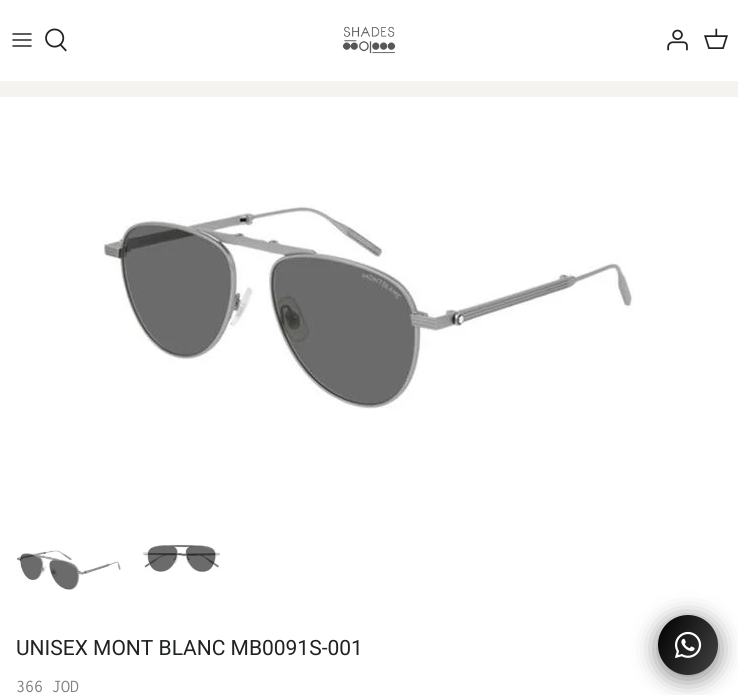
#include <cairo.h>
#include <math.h>
#include <stddef.h>

typedef struct { const char *family; double size; int italic, bold; unsigned color; } style_t;
static cairo_t *ctx;

static void ink(unsigned color) {
    cairo_set_source_rgb(ctx, (color >> 16) / 255.0, (color >> 8 & 255) / 255.0, (color & 255) / 255.0);
}

static void write(double x, double y, const char *s, const style_t *st) {
    cairo_select_font_face(ctx, st->family, st->italic ? CAIRO_FONT_SLANT_ITALIC : CAIRO_FONT_SLANT_NORMAL,
        st->bold ? CAIRO_FONT_WEIGHT_BOLD : CAIRO_FONT_WEIGHT_NORMAL);
    cairo_set_font_size(ctx, st->size);
    ink(st->color);
    cairo_move_to(ctx, x, y);
    cairo_show_text(ctx, s);
}

static void block(double x, double y, double w, double h, unsigned color) {
    ink(color);
    cairo_rectangle(ctx, x, y, w, h);
    cairo_fill(ctx);
}

static void round_path(double x, double y, double w, double h, double r) {
    cairo_new_sub_path(ctx);
    cairo_arc(ctx, x + w - r, y + h - r, r, 0, M_PI / 2);
    cairo_arc(ctx, x + r, y + h - r, r, M_PI / 2, M_PI);
    cairo_arc(ctx, x + r, y + r, r, M_PI, 1.5 * M_PI);
    cairo_arc(ctx, x + w - r, y + r, r, 1.5 * M_PI, 2 * M_PI);
    cairo_close_path(ctx);
}

static void blur_box(double x, double y, double w, double h, double r, double blur, double alpha) {
    cairo_push_group_with_content(ctx, CAIRO_CONTENT_ALPHA);
    cairo_set_operator(ctx, CAIRO_OPERATOR_SOURCE);
    for (int i = 15; i >= -15 && fmin(w, h) + blur * i / 3 > 0; i -= 2) {
        double e = blur * i / 6;
        cairo_set_source_rgba(ctx, 0, 0, 0, alpha * erfc((i - 1) / 8.5) / 2);
        round_path(x - e, y - e, w + 2 * e, h + 2 * e, fmax(0, fmin(r + e + blur * .6, fmin(w, h) / 2 + e)));
        cairo_fill(ctx);
    }
    cairo_pattern_t *soft = cairo_pop_group(ctx);
    cairo_mask(ctx, soft);
    cairo_pattern_destroy(soft);
}

static void paste(const char *path, double x, double y, double w, double h) {
    cairo_surface_t *image = cairo_image_surface_create_from_png(path);
    cairo_save(ctx);
    cairo_set_source_surface(ctx, image, x, y);
    cairo_rectangle(ctx, x, y, w, h);
    cairo_fill(ctx);
    cairo_restore(ctx);
    cairo_surface_destroy(image);
}

static const style_t s1 = {"Roboto", 21, 0, 0, 0x202223};
static const style_t s2 = {"Inconsolata", 18, 0, 0, 0x808284};

int main(void) {
    cairo_surface_t *surface = cairo_image_surface_create(CAIRO_FORMAT_RGB24, 738, 695);
    ctx = cairo_create(surface);
    cairo_font_options_t *options = cairo_font_options_create();
    cairo_font_options_set_hint_metrics(options, CAIRO_HINT_METRICS_OFF);
    cairo_font_options_set_hint_style(options, CAIRO_HINT_STYLE_NONE);
    cairo_set_font_options(ctx, options);
    cairo_set_miter_limit(ctx, 4);
    cairo_pattern_t *gradient;
    ink(0xffffff);
    cairo_paint(ctx);
    paste("pic1.png", 12, 33, 20, 14);
    paste("pic2.png", 45, 28, 22, 24);
    paste("pic3.png", 342, 26, 54, 28);
    paste("pic4.png", 667, 29, 21, 22);
    paste("pic5.png", 704, 28, 24, 21);
    block(0, 81, 738, 16, 0xf4f3ef);
    paste("pic6.png", 103, 205, 531, 204);
    paste("pic7.png", 16, 550, 106, 40);
    paste("pic8.png", 143, 544, 77, 28);
    write(16, 655, "UNISEX MONT BLANC MB0091S-001", &s1);
    write(16, 692, "366 JOD", &s2);
    ink(0x000000);
    blur_box(658, 619, 60, 60, 30, 12, 0.5);
    gradient = cairo_pattern_create_linear(652, 628, 724, 662);
    cairo_pattern_add_color_stop_rgba(gradient, 0, 0, 0, 0, 1);
    cairo_pattern_add_color_stop_rgba(gradient, 1, 0.263, 0.263, 0.263, 1);
    cairo_set_source(ctx, gradient);
    cairo_pattern_destroy(gradient);
    cairo_arc(ctx, 688, 645, 30, 0, 2 * M_PI);
    cairo_fill(ctx);
    paste("pic9.png", 675, 631, 27, 27);
    cairo_surface_write_to_png(surface, "screenshot.png");
    cairo_font_options_destroy(options);
    cairo_destroy(ctx);
    cairo_surface_destroy(surface);
    return 0;
}
